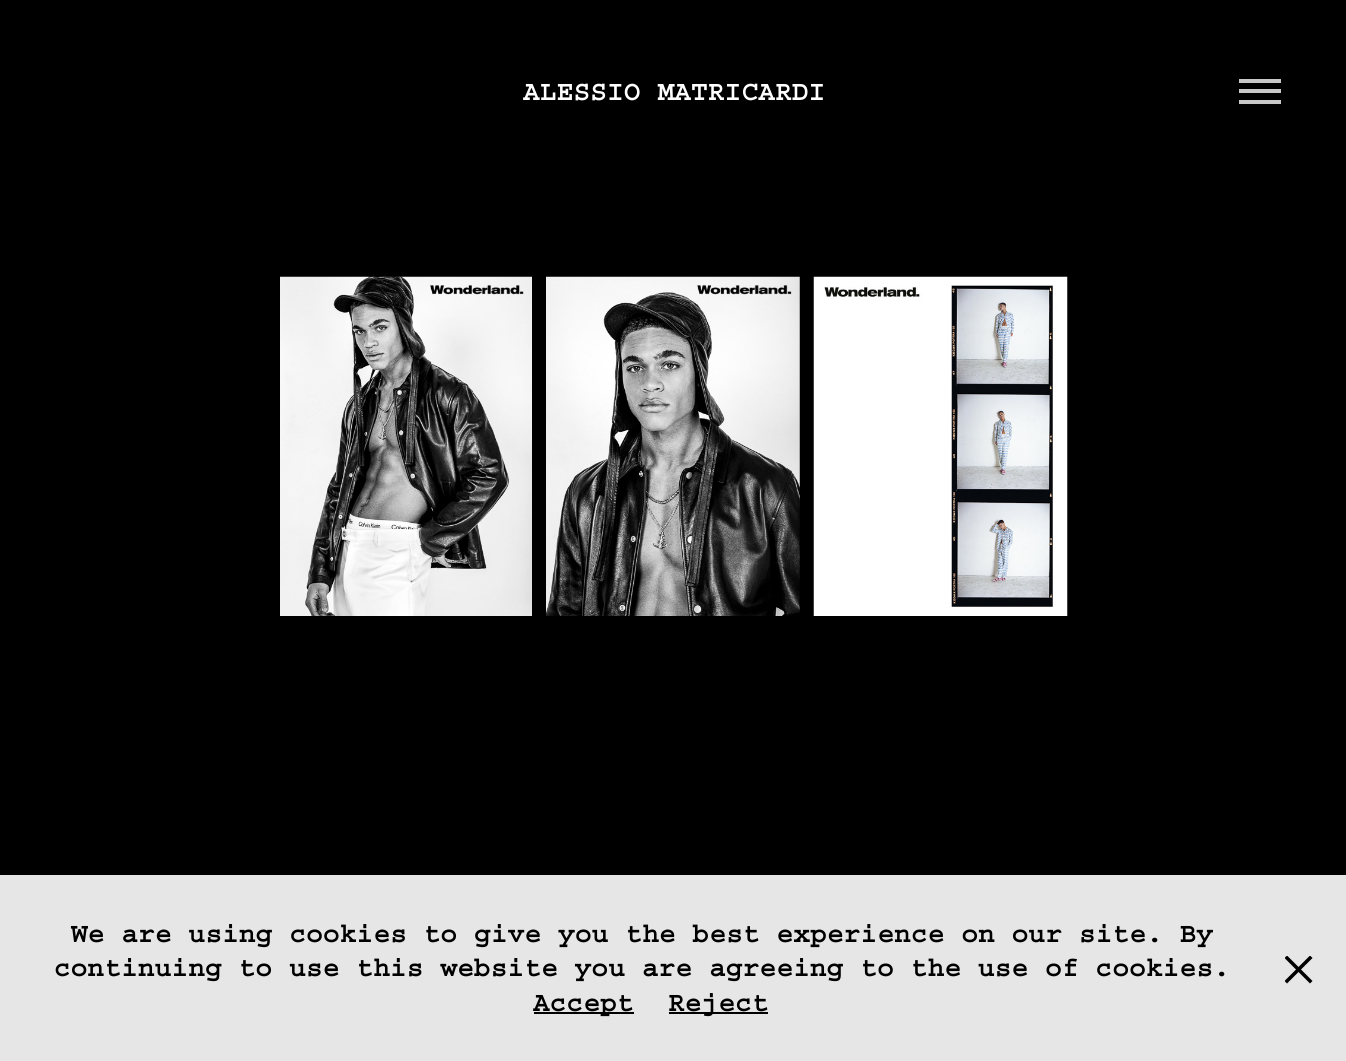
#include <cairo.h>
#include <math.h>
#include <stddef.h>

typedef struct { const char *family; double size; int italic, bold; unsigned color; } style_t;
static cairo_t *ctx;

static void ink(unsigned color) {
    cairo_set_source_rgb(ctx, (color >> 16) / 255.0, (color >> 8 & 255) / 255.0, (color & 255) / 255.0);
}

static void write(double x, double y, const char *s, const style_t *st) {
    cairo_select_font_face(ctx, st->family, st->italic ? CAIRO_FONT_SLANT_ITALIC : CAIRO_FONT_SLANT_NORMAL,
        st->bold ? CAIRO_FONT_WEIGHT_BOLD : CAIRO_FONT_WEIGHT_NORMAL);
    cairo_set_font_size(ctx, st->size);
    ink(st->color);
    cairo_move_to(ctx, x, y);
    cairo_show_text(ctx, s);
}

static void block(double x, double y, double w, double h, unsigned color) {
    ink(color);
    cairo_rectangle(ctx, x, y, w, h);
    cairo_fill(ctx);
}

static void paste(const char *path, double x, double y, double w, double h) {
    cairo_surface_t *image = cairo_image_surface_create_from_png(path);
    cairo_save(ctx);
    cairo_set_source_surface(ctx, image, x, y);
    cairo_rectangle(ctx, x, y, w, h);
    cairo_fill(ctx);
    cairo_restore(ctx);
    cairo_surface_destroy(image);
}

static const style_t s1 = {"Courier", 28, 0, 1, 0xffffff};
static const style_t s2 = {"Courier", 28, 0, 1, 0x000000};

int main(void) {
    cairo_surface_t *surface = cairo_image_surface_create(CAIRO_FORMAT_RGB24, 1346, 1061);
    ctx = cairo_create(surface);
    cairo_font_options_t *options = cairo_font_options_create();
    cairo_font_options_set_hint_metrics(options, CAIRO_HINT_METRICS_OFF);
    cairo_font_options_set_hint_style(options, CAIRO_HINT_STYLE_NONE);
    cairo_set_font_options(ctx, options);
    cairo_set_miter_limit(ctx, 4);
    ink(0x000000);
    cairo_paint(ctx);
    write(523, 100, "ALESSIO MATRICARDI", &s1);
    block(1239, 79, 42, 4, 0xc8c8c8);
    block(1239, 89, 42, 4, 0xc8c8c8);
    block(1239, 100, 42, 4, 0xc8c8c8);
    paste("pic1.png", 280, 276, 252, 340);
    paste("pic2.png", 546, 276, 254, 340);
    paste("pic3.png", 813, 276, 255, 340);
    block(0, 875, 1346, 186, 0xe6e6e6);
    write(71, 942, "We are using cookies to give you the best experience on our site. By", &s2);
    write(54, 976, "continuing to use this website you are agreeing to the use of cookies.", &s2);
    block(534, 1012, 100, 2, 0x000000);
    write(533, 1011, "Accept", &s2);
    block(669, 1012, 99, 2, 0x000000);
    write(668, 1011, "Reject", &s2);
    cairo_save(ctx);
    cairo_rectangle(ctx, 1285, 956, 28, 28);
    cairo_clip(ctx);
    cairo_new_path(ctx);
    cairo_move_to(ctx, 1284.5, 958);
    cairo_line_to(ctx, 1287, 955.5);
    cairo_line_to(ctx, 1312.5, 981);
    cairo_line_to(ctx, 1310, 983.5);
    cairo_close_path(ctx);
    cairo_fill(ctx);
    cairo_new_path(ctx);
    cairo_move_to(ctx, 1287, 983.5);
    cairo_line_to(ctx, 1284.5, 981);
    cairo_line_to(ctx, 1310, 955.5);
    cairo_line_to(ctx, 1312.5, 958);
    cairo_close_path(ctx);
    cairo_fill(ctx);
    cairo_restore(ctx);
    cairo_surface_write_to_png(surface, "screenshot.png");
    cairo_font_options_destroy(options);
    cairo_destroy(ctx);
    cairo_surface_destroy(surface);
    return 0;
}
